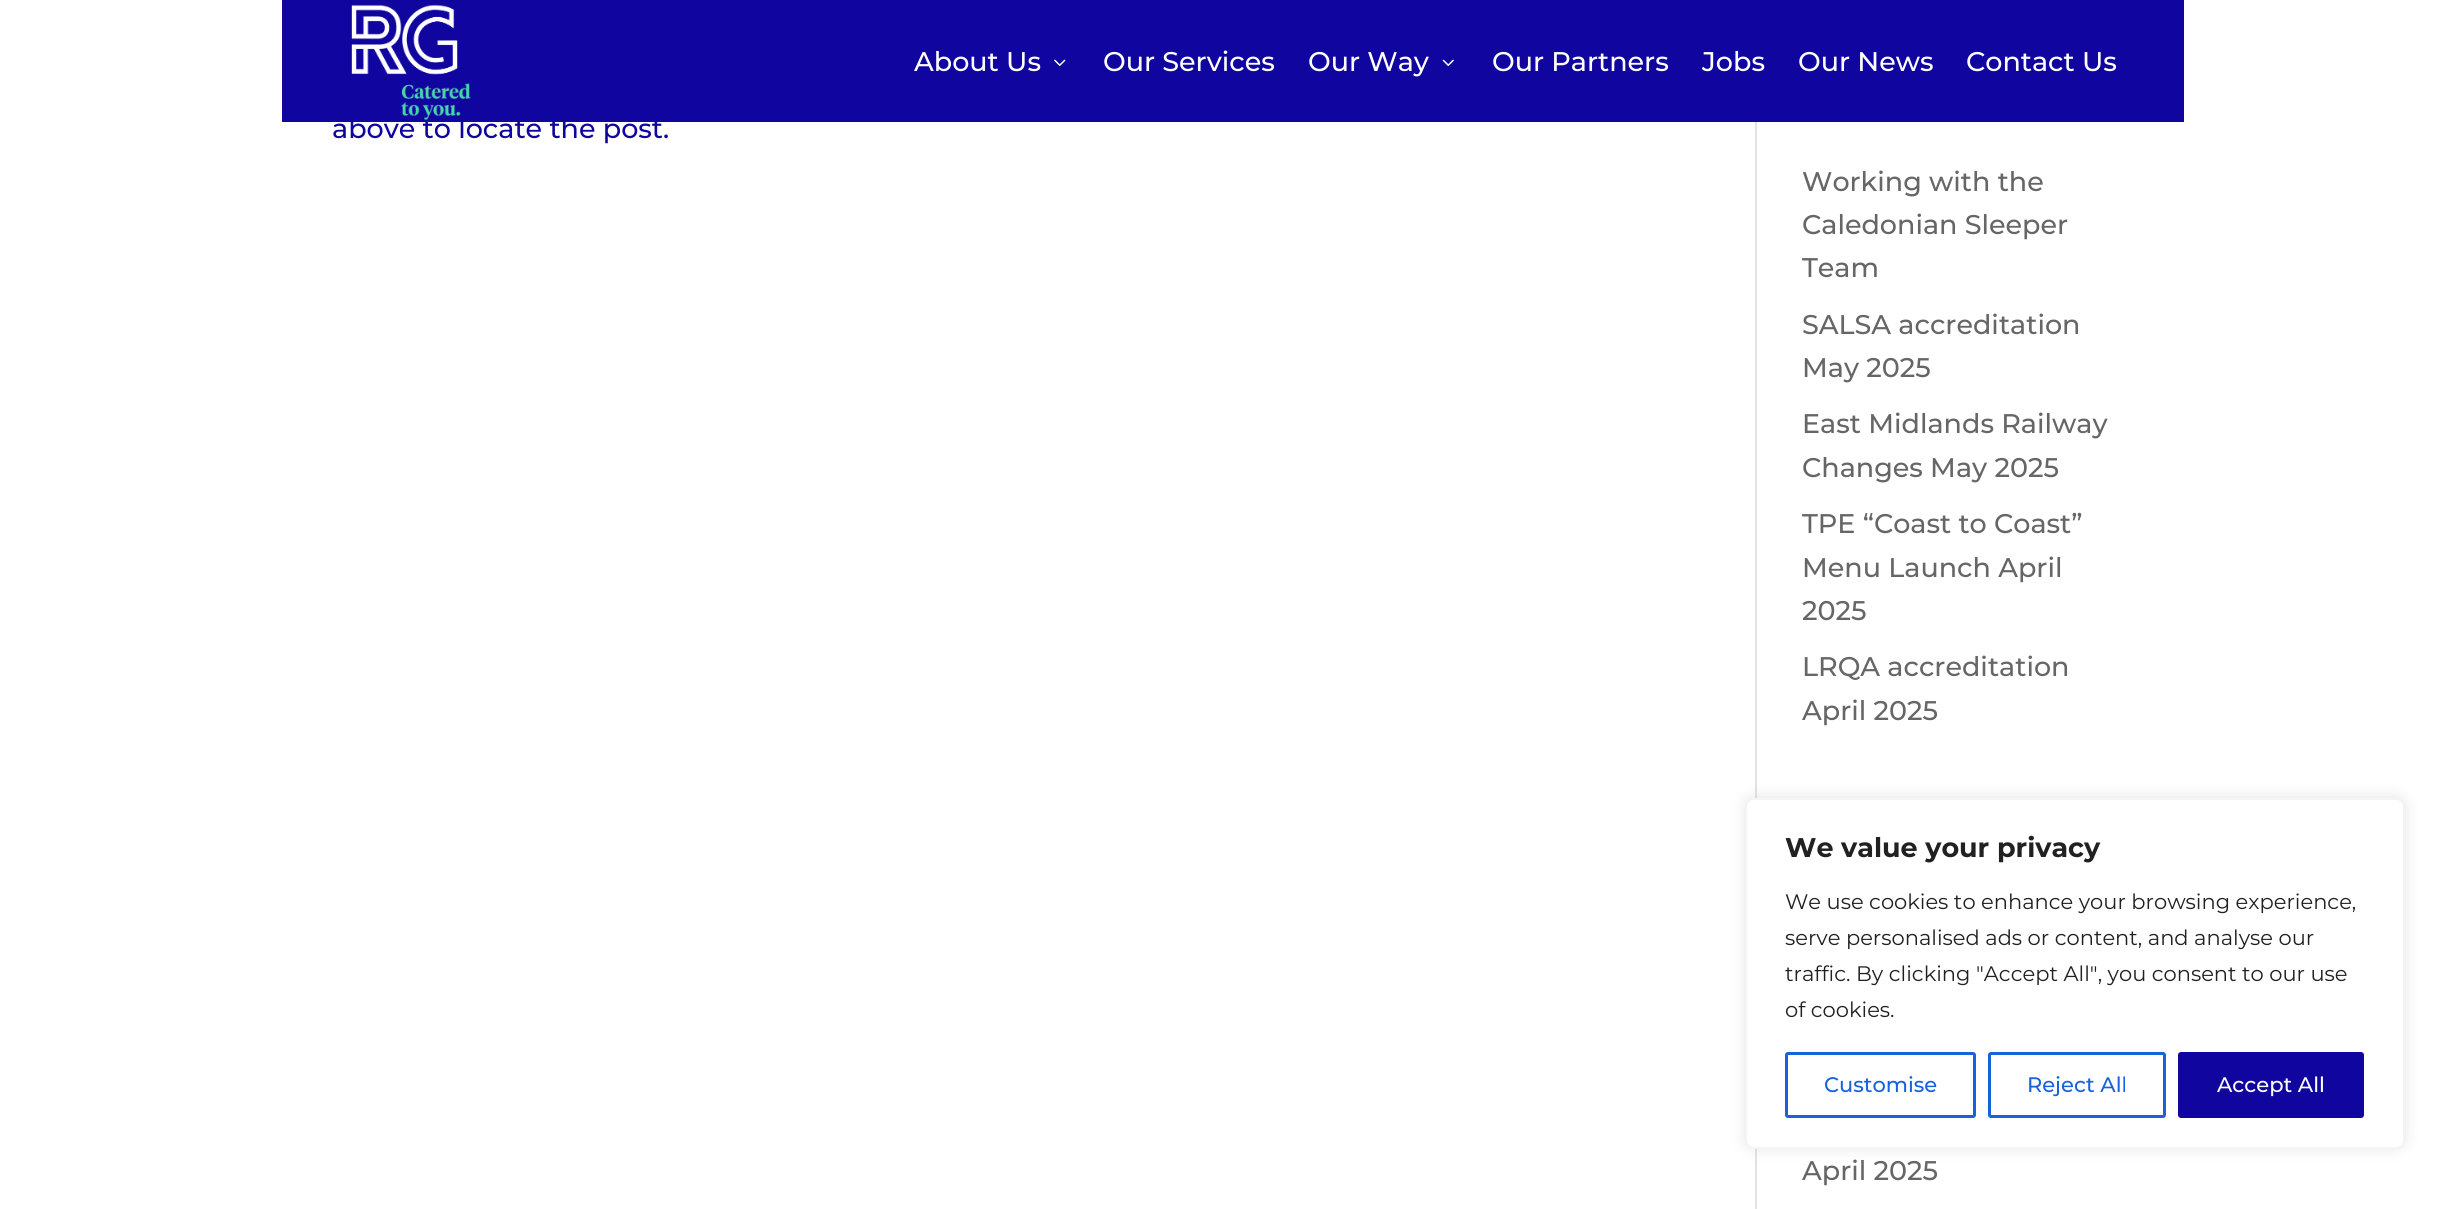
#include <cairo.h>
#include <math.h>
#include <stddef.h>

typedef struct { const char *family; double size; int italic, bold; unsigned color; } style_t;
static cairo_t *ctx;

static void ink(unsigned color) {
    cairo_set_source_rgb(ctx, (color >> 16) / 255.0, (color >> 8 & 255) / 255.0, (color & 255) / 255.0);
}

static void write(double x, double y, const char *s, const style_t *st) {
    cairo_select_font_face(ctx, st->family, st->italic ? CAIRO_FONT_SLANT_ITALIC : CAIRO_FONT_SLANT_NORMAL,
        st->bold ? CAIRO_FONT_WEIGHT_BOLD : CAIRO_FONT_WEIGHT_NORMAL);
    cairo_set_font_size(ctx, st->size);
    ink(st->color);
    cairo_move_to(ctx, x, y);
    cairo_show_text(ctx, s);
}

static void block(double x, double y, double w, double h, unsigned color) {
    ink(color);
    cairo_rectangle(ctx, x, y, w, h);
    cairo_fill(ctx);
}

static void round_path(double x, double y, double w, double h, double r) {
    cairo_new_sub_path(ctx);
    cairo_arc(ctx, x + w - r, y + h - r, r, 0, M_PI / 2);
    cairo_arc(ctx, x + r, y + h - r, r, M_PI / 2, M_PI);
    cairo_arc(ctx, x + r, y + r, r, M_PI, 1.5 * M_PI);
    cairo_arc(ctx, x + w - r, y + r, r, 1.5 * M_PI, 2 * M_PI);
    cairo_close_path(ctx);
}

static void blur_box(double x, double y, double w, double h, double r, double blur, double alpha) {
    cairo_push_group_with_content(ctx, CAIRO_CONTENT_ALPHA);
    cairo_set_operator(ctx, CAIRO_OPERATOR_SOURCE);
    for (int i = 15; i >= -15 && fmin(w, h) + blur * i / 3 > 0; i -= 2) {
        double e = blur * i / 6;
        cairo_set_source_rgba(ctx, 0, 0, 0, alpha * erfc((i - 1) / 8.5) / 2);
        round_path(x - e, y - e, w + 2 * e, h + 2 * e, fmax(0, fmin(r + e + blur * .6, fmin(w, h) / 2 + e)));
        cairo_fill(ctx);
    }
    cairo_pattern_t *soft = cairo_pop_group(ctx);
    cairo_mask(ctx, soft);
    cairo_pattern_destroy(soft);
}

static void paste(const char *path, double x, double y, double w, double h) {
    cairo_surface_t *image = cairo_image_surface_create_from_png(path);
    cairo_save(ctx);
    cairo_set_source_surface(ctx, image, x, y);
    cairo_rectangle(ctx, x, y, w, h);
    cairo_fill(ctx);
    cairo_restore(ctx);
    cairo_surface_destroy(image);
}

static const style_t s1 = {"Montserrat Medium", 27, 0, 0, 0x10059f};
static const style_t s2 = {"Montserrat Medium", 27, 0, 0, 0xffffff};
static const style_t s3 = {"Montserrat Medium", 27, 0, 0, 0x666666};
static const style_t s4 = {"Montserrat", 27, 0, 1, 0x212121};
static const style_t s5 = {"Montserrat", 21, 0, 0, 0x212121};
static const style_t s6 = {"Montserrat Medium", 21, 0, 0, 0x1863dc};
static const style_t s7 = {"Montserrat Medium", 21, 0, 0, 0xffffff};

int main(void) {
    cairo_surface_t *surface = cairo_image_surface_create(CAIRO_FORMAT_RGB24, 2464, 1209);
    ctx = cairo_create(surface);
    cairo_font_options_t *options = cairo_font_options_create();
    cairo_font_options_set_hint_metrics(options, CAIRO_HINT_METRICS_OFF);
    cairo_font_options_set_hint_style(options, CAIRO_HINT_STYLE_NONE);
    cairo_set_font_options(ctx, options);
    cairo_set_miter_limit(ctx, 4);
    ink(0xffffff);
    cairo_paint(ctx);
    block(282, 0, 1902, 122, 0x10059f);
    write(332, 138, "above to locate the post.", &s1);
    paste("pic1.png", 351, 4, 120, 116);
    write(914, 71, "About Us", &s2);
    paste("pic2.png", 1054, 59, 12, 7);
    write(1103, 71, "Our Services", &s2);
    write(1308, 71, "Our Way", &s2);
    paste("pic3.png", 1442, 59, 12, 7);
    write(1492, 71, "Our Partners", &s2);
    write(1702, 71, "Jobs", &s2);
    write(1798, 71, "Our News", &s2);
    write(1966, 71, "Contact Us", &s2);
    write(1802, 191, "Working with the", &s3);
    write(1802, 234, "Caledonian Sleeper", &s3);
    write(1802, 277, "Team", &s3);
    write(1802, 334, "SALSA accreditation", &s3);
    write(1802, 377, "May 2025", &s3);
    write(1802, 433, "East Midlands Railway", &s3);
    write(1802, 477, "Changes May 2025", &s3);
    write(1802, 533, "TPE “Coast to Coast”", &s3);
    write(1802, 577, "Menu Launch April", &s3);
    write(1802, 620, "2025", &s3);
    write(1802, 676, "LRQA accreditation", &s3);
    write(1802, 720, "April 2025", &s3);
    write(1802, 1180, "April 2025", &s3);
    block(1755, 122, 2, 1087, 0xe2e2e2);
    ink(0xacabab);
    blur_box(1745, 797, 660, 351, 9, 7.5, 0.3);
    ink(0xffffff);
    round_path(1746, 799, 658, 349, 8);
    cairo_fill_preserve(ctx);
    ink(0xf4f4f4);
    cairo_stroke(ctx);
    write(1785, 857, "We value your privacy", &s4);
    write(1785, 909, "We use cookies to enhance your browsing experience,", &s5);
    write(1785, 945, "serve personalised ads or content, and analyse our", &s5);
    write(1785, 981, "traffic. By clicking \"Accept All\", you consent to our use", &s5);
    write(1785, 1017, "of cookies.", &s5);
    round_path(1786.5, 1053.5, 188, 63, 1.5);
    ink(0x1863dc);
    cairo_set_line_width(ctx, 3);
    cairo_stroke(ctx);
    write(1824, 1092, "Customise", &s6);
    round_path(1989.5, 1053.5, 175, 63, 1.5);
    cairo_stroke(ctx);
    write(2027, 1092, "Reject All", &s6);
    ink(0x10059f);
    round_path(2179.5, 1053.5, 183, 63, 1.5);
    cairo_fill_preserve(ctx);
    cairo_stroke(ctx);
    write(2217, 1092, "Accept All", &s7);
    cairo_surface_write_to_png(surface, "screenshot.png");
    cairo_font_options_destroy(options);
    cairo_destroy(ctx);
    cairo_surface_destroy(surface);
    return 0;
}
